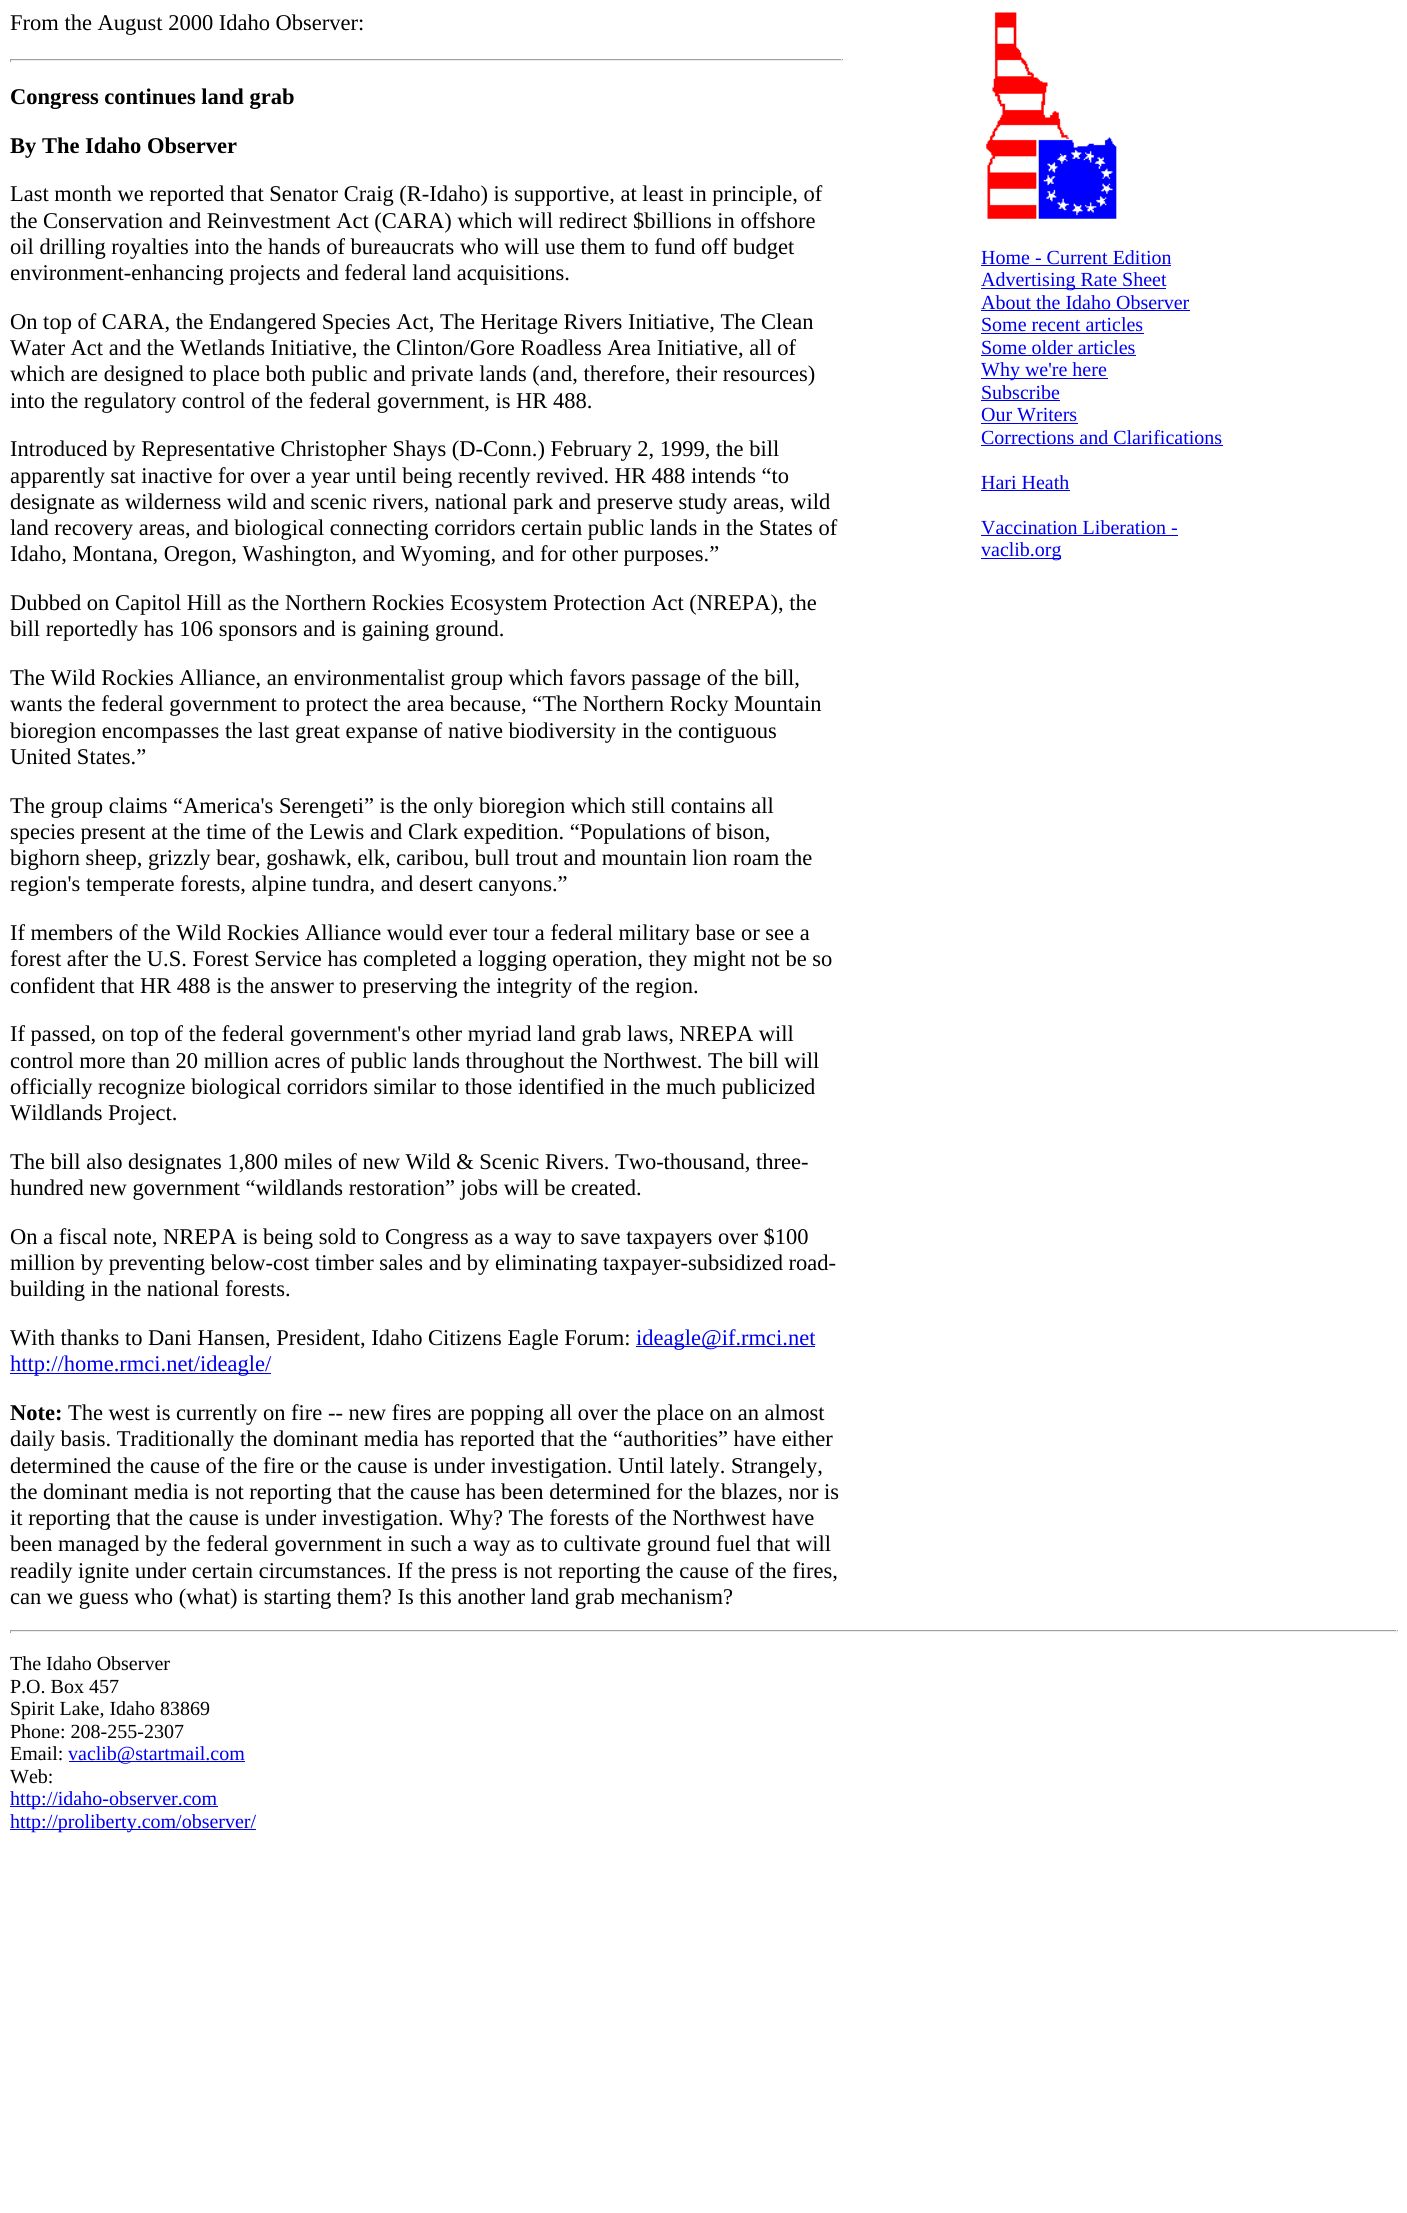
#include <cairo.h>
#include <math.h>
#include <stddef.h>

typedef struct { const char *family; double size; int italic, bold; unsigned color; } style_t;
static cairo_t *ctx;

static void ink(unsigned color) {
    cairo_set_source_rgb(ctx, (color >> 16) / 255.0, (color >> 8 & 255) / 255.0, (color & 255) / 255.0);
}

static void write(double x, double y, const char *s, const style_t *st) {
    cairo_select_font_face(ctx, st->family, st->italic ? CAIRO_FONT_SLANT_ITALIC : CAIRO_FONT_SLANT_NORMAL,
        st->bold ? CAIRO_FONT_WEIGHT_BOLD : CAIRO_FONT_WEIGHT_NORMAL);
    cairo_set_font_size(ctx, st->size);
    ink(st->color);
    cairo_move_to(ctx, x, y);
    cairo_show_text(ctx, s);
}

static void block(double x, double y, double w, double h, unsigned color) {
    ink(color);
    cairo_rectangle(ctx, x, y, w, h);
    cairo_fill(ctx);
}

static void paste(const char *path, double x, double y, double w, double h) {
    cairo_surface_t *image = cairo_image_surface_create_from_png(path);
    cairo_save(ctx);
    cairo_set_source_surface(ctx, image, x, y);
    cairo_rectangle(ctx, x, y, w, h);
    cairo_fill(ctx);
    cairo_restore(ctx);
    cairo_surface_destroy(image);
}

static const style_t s1 = {"Liberation Serif", 22.5, 0, 0, 0x000000};
static const style_t s2 = {"Liberation Serif", 22.5, 0, 1, 0x000000};
static const style_t s3 = {"Liberation Serif", 22.5, 0, 0, 0x0000ee};
static const style_t s4 = {"Liberation Serif", 20, 0, 0, 0x0000ee};
static const style_t s5 = {"Liberation Serif", 20, 0, 0, 0x000000};

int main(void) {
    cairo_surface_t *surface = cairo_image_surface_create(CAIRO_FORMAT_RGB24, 1407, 2213);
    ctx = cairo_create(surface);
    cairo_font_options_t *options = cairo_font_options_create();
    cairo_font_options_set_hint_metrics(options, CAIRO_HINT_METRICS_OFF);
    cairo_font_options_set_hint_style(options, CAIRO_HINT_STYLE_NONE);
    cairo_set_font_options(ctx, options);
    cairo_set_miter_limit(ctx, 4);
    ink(0xffffff);
    cairo_paint(ctx);
    write(10, 30, "From the August 2000 Idaho Observer:", &s1);
    block(10, 59, 833, 1, 0x9f9f9f);
    block(841, 59, 1, 3, 0xeeeeee);
    block(10, 60, 833, 1, 0xeeeeee);
    block(10, 59, 1, 3, 0x9f9f9f);
    write(10, 104, "Congress continues land grab", &s2);
    write(10, 153, "By The Idaho Observer", &s2);
    write(10, 201, "Last month we reported that Senator Craig (R-Idaho) is supportive, at least in principle, of", &s1);
    write(10, 228, "the Conservation and Reinvestment Act (CARA) which will redirect $billions in offshore", &s1);
    write(10, 254, "oil drilling royalties into the hands of bureaucrats who will use them to fund off budget", &s1);
    write(10, 280, "environment-enhancing projects and federal land acquisitions.", &s1);
    write(10, 329, "On top of CARA, the Endangered Species Act, The Heritage Rivers Initiative, The Clean", &s1);
    write(10, 355, "Water Act and the Wetlands Initiative, the Clinton/Gore Roadless Area Initiative, all of", &s1);
    write(10, 381, "which are designed to place both public and private lands (and, therefore, their resources)", &s1);
    write(10, 408, "into the regulatory control of the federal government, is HR 488.", &s1);
    write(10, 456, "Introduced by Representative Christopher Shays (D-Conn.) February 2, 1999, the bill", &s1);
    write(10, 483, "apparently sat inactive for over a year until being recently revived. HR 488 intends “to", &s1);
    write(10, 509, "designate as wilderness wild and scenic rivers, national park and preserve study areas, wild", &s1);
    write(10, 535, "land recovery areas, and biological connecting corridors certain public lands in the States of", &s1);
    write(10, 561, "Idaho, Montana, Oregon, Washington, and Wyoming, and for other purposes.”", &s1);
    write(10, 610, "Dubbed on Capitol Hill as the Northern Rockies Ecosystem Protection Act (NREPA), the", &s1);
    write(10, 636, "bill reportedly has 106 sponsors and is gaining ground.", &s1);
    write(10, 685, "The Wild Rockies Alliance, an environmentalist group which favors passage of the bill,", &s1);
    write(10, 711, "wants the federal government to protect the area because, “The Northern Rocky Mountain", &s1);
    write(10, 738, "bioregion encompasses the last great expanse of native biodiversity in the contiguous", &s1);
    write(10, 764, "United States.”", &s1);
    write(10, 813, "The group claims “America's Serengeti” is the only bioregion which still contains all", &s1);
    write(10, 839, "species present at the time of the Lewis and Clark expedition. “Populations of bison,", &s1);
    write(10, 865, "bighorn sheep, grizzly bear, goshawk, elk, caribou, bull trout and mountain lion roam the", &s1);
    write(10, 891, "region's temperate forests, alpine tundra, and desert canyons.”", &s1);
    write(10, 940, "If members of the Wild Rockies Alliance would ever tour a federal military base or see a", &s1);
    write(10, 966, "forest after the U.S. Forest Service has completed a logging operation, they might not be so", &s1);
    write(10, 993, "confident that HR 488 is the answer to preserving the integrity of the region.", &s1);
    write(10, 1041, "If passed, on top of the federal government's other myriad land grab laws, NREPA will", &s1);
    write(10, 1068, "control more than 20 million acres of public lands throughout the Northwest. The bill will", &s1);
    write(10, 1094, "officially recognize biological corridors similar to those identified in the much publicized", &s1);
    write(10, 1120, "Wildlands Project.", &s1);
    write(10, 1169, "The bill also designates 1,800 miles of new Wild & Scenic Rivers. Two-thousand, three-", &s1);
    write(10, 1195, "hundred new government “wildlands restoration” jobs will be created.", &s1);
    write(10, 1244, "On a fiscal note, NREPA is being sold to Congress as a way to save taxpayers over $100", &s1);
    write(10, 1270, "million by preventing below-cost timber sales and by eliminating taxpayer-subsidized road-", &s1);
    write(10, 1296, "building in the national forests.", &s1);
    write(10, 1345, "With thanks to Dani Hansen, President, Idaho Citizens Eagle Forum:", &s1);
    block(636, 1346, 179, 1, 0x0000ee);
    write(636, 1345, "ideagle@if.rmci.net", &s3);
    block(10, 1373, 261, 1, 0x0000ee);
    write(10, 1371, "http://home.rmci.net/ideagle/", &s3);
    write(10, 1420, "Note:", &s2);
    write(68, 1420, "The west is currently on fire -- new fires are popping all over the place on an almost", &s1);
    write(10, 1446, "daily basis. Traditionally the dominant media has reported that the “authorities” have either", &s1);
    write(10, 1473, "determined the cause of the fire or the cause is under investigation. Until lately. Strangely,", &s1);
    write(10, 1499, "the dominant media is not reporting that the cause has been determined for the blazes, nor is", &s1);
    write(10, 1525, "it reporting that the cause is under investigation. Why? The forests of the Northwest have", &s1);
    write(10, 1551, "been managed by the federal government in such a way as to cultivate ground fuel that will", &s1);
    write(10, 1578, "readily ignite under certain circumstances. If the press is not reporting the cause of the fires,", &s1);
    write(10, 1604, "can we guess who (what) is starting them? Is this another land grab mechanism?", &s1);
    paste("pic1.png", 986, 12, 131, 207);
    write(981, 264, "Home - Current Edition", &s4);
    block(981, 265, 190, 1, 0x0000ee);
    block(981, 288, 185, 1, 0x0000ee);
    write(981, 286, "Advertising Rate Sheet", &s4);
    write(981, 309, "About the Idaho Observer", &s4);
    block(981, 310, 209, 1, 0x0000ee);
    write(981, 331, "Some recent articles", &s4);
    block(981, 333, 163, 1, 0x0000ee);
    write(981, 354, "Some older articles", &s4);
    block(981, 355, 155, 1, 0x0000ee);
    block(981, 378, 127, 1, 0x0000ee);
    write(981, 376, "Why we're here", &s4);
    write(981, 399, "Subscribe", &s4);
    block(981, 400, 79, 1, 0x0000ee);
    write(981, 421, "Our Writers", &s4);
    block(981, 423, 97, 1, 0x0000ee);
    write(981, 444, "Corrections and Clarifications", &s4);
    block(981, 445, 242, 1, 0x0000ee);
    write(981, 489, "Hari Heath", &s4);
    block(981, 490, 89, 1, 0x0000ee);
    write(981, 534, "Vaccination Liberation -", &s4);
    block(981, 535, 197, 1, 0x0000ee);
    block(981, 558, 80, 1, 0x0000ee);
    write(981, 556, "vaclib.org", &s4);
    block(10, 1630, 1388, 1, 0x9f9f9f);
    block(1396, 1630, 1, 3, 0xeeeeee);
    block(10, 1631, 1388, 1, 0xeeeeee);
    block(10, 1630, 1, 3, 0x9f9f9f);
    write(10, 1670, "The Idaho Observer", &s5);
    write(10, 1693, "P.O. Box 457", &s5);
    write(10, 1715, "Spirit Lake, Idaho 83869", &s5);
    write(10, 1738, "Phone: 208-255-2307", &s5);
    write(10, 1760, "Email:", &s5);
    block(69, 1761, 176, 1, 0x0000ee);
    write(68, 1760, "vaclib@startmail.com", &s4);
    write(10, 1783, "Web:", &s5);
    block(10, 1806, 208, 1, 0x0000ee);
    write(10, 1805, "http://idaho-observer.com", &s4);
    block(10, 1829, 246, 1, 0x0000ee);
    write(10, 1828, "http://proliberty.com/observer/", &s4);
    cairo_surface_write_to_png(surface, "screenshot.png");
    cairo_font_options_destroy(options);
    cairo_destroy(ctx);
    cairo_surface_destroy(surface);
    return 0;
}
